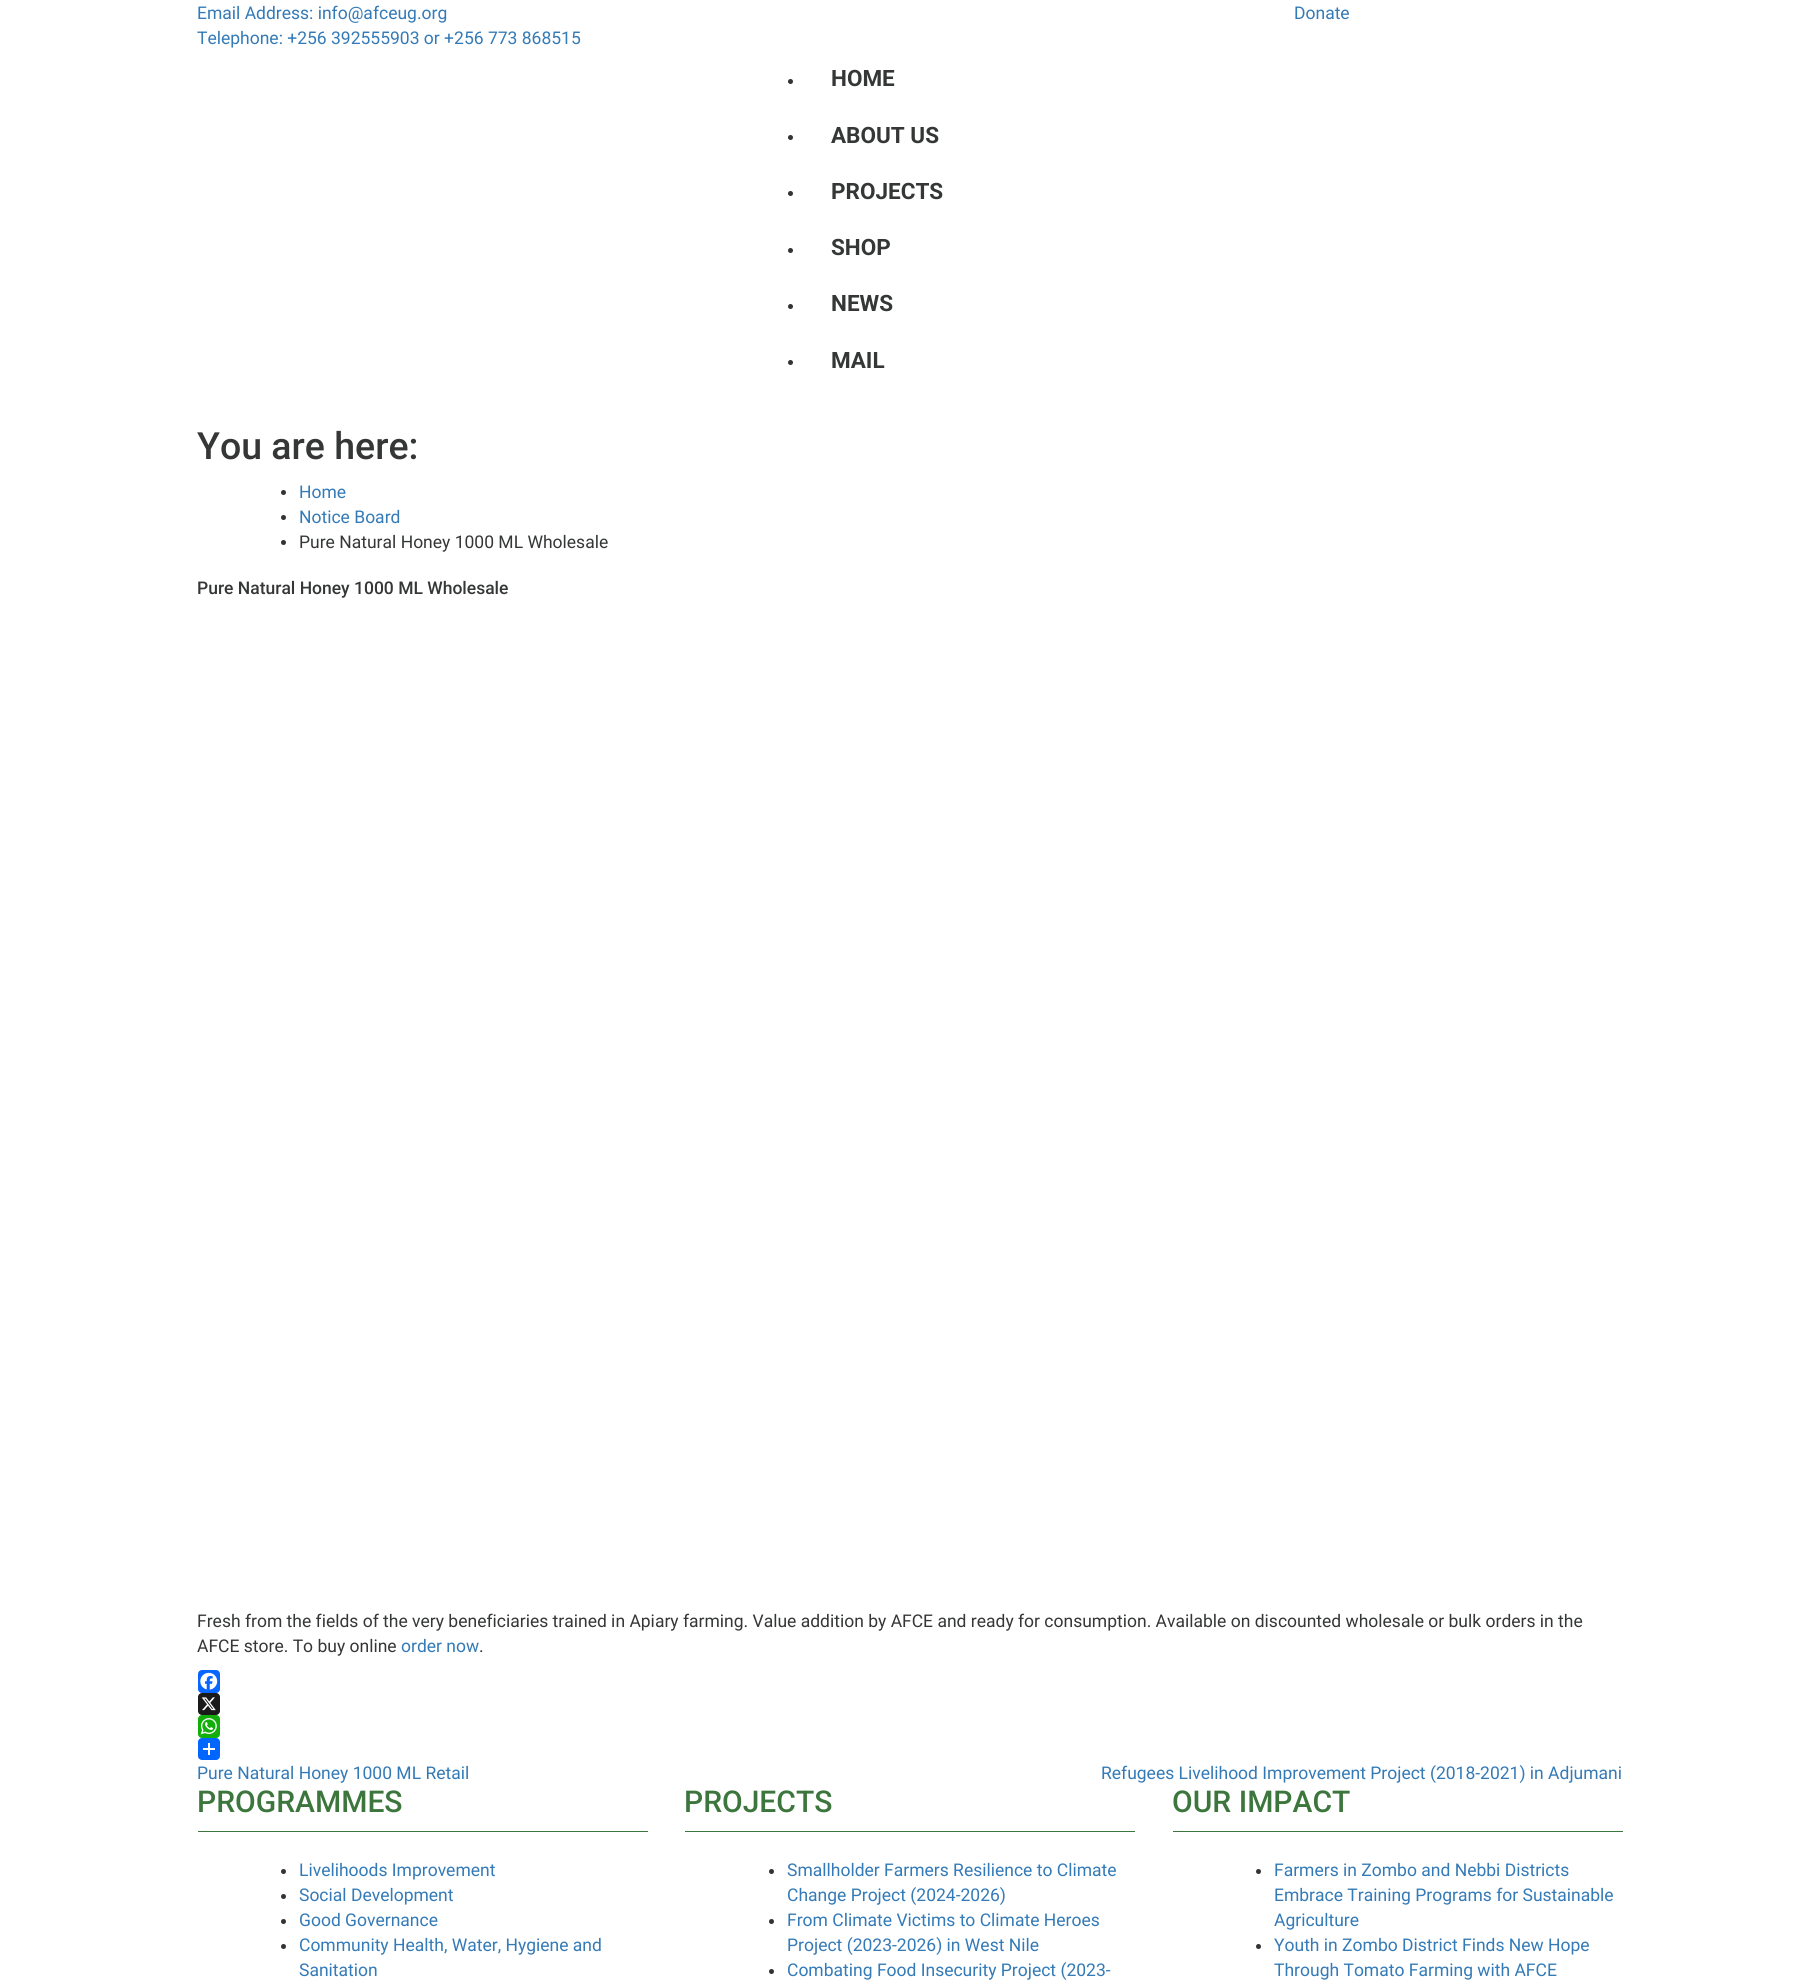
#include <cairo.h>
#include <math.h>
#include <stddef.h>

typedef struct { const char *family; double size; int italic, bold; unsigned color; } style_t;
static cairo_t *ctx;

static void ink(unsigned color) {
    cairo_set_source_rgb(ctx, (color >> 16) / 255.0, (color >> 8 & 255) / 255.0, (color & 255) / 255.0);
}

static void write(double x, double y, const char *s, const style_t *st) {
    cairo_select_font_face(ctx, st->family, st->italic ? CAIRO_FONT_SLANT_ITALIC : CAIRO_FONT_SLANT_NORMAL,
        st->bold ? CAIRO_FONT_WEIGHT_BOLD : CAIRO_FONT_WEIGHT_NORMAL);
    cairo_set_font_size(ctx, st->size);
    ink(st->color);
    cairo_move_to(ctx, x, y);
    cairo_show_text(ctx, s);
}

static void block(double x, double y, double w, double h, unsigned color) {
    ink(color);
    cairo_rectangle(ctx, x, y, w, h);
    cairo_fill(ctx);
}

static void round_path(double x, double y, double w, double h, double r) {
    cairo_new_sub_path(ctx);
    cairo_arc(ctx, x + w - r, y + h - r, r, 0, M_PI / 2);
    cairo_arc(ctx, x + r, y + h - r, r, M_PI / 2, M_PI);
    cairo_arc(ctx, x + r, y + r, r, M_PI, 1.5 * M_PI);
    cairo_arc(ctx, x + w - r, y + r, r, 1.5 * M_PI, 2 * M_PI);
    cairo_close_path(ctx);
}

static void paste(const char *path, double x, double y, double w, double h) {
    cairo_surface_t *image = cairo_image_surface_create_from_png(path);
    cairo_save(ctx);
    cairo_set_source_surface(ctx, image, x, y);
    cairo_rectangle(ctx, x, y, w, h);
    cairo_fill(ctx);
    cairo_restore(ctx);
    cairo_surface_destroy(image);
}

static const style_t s1 = {"Roboto", 17.5, 0, 0, 0x337ab7};
static const style_t s2 = {"Roboto", 22.5, 0, 1, 0x353636};
static const style_t s3 = {"Roboto Medium", 37.5, 0, 0, 0x353636};
static const style_t s4 = {"Roboto", 17.5, 0, 0, 0x353636};
static const style_t s5 = {"Roboto Medium", 17.5, 0, 0, 0x353636};
static const style_t s6 = {"Roboto Medium", 30, 0, 0, 0x3c763d};

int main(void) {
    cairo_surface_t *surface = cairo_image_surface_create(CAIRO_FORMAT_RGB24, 1818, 1985);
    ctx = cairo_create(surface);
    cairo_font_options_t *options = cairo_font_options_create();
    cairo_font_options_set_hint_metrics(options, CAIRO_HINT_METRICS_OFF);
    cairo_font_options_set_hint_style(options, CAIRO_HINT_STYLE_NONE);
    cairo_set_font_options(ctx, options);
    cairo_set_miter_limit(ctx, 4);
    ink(0xffffff);
    cairo_paint(ctx);
    write(197, 19, "Email Address: info@afceug.org", &s1);
    write(197, 44, "Telephone: +256 392555903 or +256 773 868515", &s1);
    write(1294, 19, "Donate", &s1);
    ink(0x333333);
    cairo_new_path(ctx);
    cairo_arc(ctx, 790.5, 81.5, 2.5, 0, 2 * M_PI);
    cairo_fill(ctx);
    write(831, 86, "HOME", &s2);
    ink(0x333333);
    cairo_new_path(ctx);
    cairo_arc(ctx, 790.5, 137.5, 2.5, 0, 2 * M_PI);
    cairo_fill(ctx);
    write(831, 143, "ABOUT US", &s2);
    ink(0x333333);
    cairo_new_path(ctx);
    cairo_arc(ctx, 790.5, 193.5, 2.5, 0, 2 * M_PI);
    cairo_fill(ctx);
    write(831, 199, "PROJECTS", &s2);
    ink(0x333333);
    cairo_new_path(ctx);
    cairo_arc(ctx, 790.5, 250.5, 2.5, 0, 2 * M_PI);
    cairo_fill(ctx);
    write(831, 255, "SHOP", &s2);
    ink(0x333333);
    cairo_new_path(ctx);
    cairo_arc(ctx, 790.5, 306.5, 2.5, 0, 2 * M_PI);
    cairo_fill(ctx);
    write(831, 311, "NEWS", &s2);
    ink(0x333333);
    cairo_new_path(ctx);
    cairo_arc(ctx, 790.5, 362.5, 2.5, 0, 2 * M_PI);
    cairo_fill(ctx);
    write(831, 368, "MAIL", &s2);
    write(197, 459, "You are here:", &s3);
    ink(0x333333);
    cairo_new_path(ctx);
    cairo_arc(ctx, 283.5, 492.5, 2.5, 0, 2 * M_PI);
    cairo_fill(ctx);
    write(299, 498, "Home", &s1);
    ink(0x333333);
    cairo_new_path(ctx);
    cairo_arc(ctx, 283.5, 517.5, 2.5, 0, 2 * M_PI);
    cairo_fill(ctx);
    write(299, 523, "Notice Board", &s1);
    ink(0x333333);
    cairo_new_path(ctx);
    cairo_arc(ctx, 283.5, 542.5, 2.5, 0, 2 * M_PI);
    cairo_fill(ctx);
    write(299, 548, "Pure Natural Honey 1000 ML Wholesale", &s4);
    write(197, 594, "Pure Natural Honey 1000 ML Wholesale", &s5);
    write(197, 1627, "Fresh from the fields of the very beneficiaries trained in Apiary farming. Value addition by AFCE and ready for consumption. Available on discounted wholesale or bulk orders in the", &s4);
    write(197, 1652, "AFCE store. To buy online", &s4);
    write(401, 1652, "order now", &s1);
    write(479, 1652, ".", &s4);
    ink(0x0866ff);
    round_path(198, 1670, 22, 23, 4);
    cairo_fill(ctx);
    paste("pic1.png", 200, 1672, 18, 18);
    ink(0x1a1a1a);
    round_path(198, 1693, 22, 22, 4);
    cairo_fill(ctx);
    paste("pic2.png", 201, 1697, 15, 14);
    ink(0x12af0a);
    round_path(198, 1715, 22, 23, 4);
    cairo_fill(ctx);
    paste("pic3.png", 200, 1718, 17, 17);
    ink(0x0166ff);
    round_path(198, 1738, 22, 22, 4);
    cairo_fill(ctx);
    block(208, 1743, 2, 12, 0xffffff);
    block(203, 1748, 12, 2, 0xffffff);
    write(197, 1779, "Pure Natural Honey 1000 ML Retail", &s1);
    write(1101, 1779, "Refugees Livelihood Improvement Project (2018-2021) in Adjumani", &s1);
    block(198, 1831, 450, 1, 0x3c763d);
    write(197, 1812, "PROGRAMMES", &s6);
    ink(0x333333);
    cairo_new_path(ctx);
    cairo_arc(ctx, 283.5, 1871.5, 2.5, 0, 2 * M_PI);
    cairo_fill(ctx);
    write(299, 1876, "Livelihoods Improvement", &s1);
    ink(0x333333);
    cairo_new_path(ctx);
    cairo_arc(ctx, 283.5, 1896.5, 2.5, 0, 2 * M_PI);
    cairo_fill(ctx);
    write(299, 1901, "Social Development", &s1);
    ink(0x333333);
    cairo_new_path(ctx);
    cairo_arc(ctx, 283.5, 1921.5, 2.5, 0, 2 * M_PI);
    cairo_fill(ctx);
    write(299, 1926, "Good Governance", &s1);
    ink(0x333333);
    cairo_new_path(ctx);
    cairo_arc(ctx, 283.5, 1946.5, 2.5, 0, 2 * M_PI);
    cairo_fill(ctx);
    write(299, 1951, "Community Health, Water, Hygiene and", &s1);
    write(299, 1976, "Sanitation", &s1);
    block(685, 1831, 450, 1, 0x3c763d);
    write(684, 1812, "PROJECTS", &s6);
    ink(0x333333);
    cairo_new_path(ctx);
    cairo_arc(ctx, 771.5, 1871.5, 2.5, 0, 2 * M_PI);
    cairo_fill(ctx);
    write(787, 1876, "Smallholder Farmers Resilience to Climate", &s1);
    write(787, 1901, "Change Project (2024-2026)", &s1);
    ink(0x333333);
    cairo_new_path(ctx);
    cairo_arc(ctx, 771.5, 1921.5, 2.5, 0, 2 * M_PI);
    cairo_fill(ctx);
    write(787, 1926, "From Climate Victims to Climate Heroes", &s1);
    write(787, 1951, "Project (2023-2026) in West Nile", &s1);
    ink(0x333333);
    cairo_new_path(ctx);
    cairo_arc(ctx, 771.5, 1971.5, 2.5, 0, 2 * M_PI);
    cairo_fill(ctx);
    write(787, 1976, "Combating Food Insecurity Project (2023-", &s1);
    block(1173, 1831, 450, 1, 0x3c763d);
    write(1172, 1812, "OUR IMPACT", &s6);
    ink(0x333333);
    cairo_new_path(ctx);
    cairo_arc(ctx, 1258.5, 1871.5, 2.5, 0, 2 * M_PI);
    cairo_fill(ctx);
    write(1274, 1876, "Farmers in Zombo and Nebbi Districts", &s1);
    write(1274, 1901, "Embrace Training Programs for Sustainable", &s1);
    write(1274, 1926, "Agriculture", &s1);
    ink(0x333333);
    cairo_new_path(ctx);
    cairo_arc(ctx, 1258.5, 1946.5, 2.5, 0, 2 * M_PI);
    cairo_fill(ctx);
    write(1274, 1951, "Youth in Zombo District Finds New Hope", &s1);
    write(1274, 1976, "Through Tomato Farming with AFCE", &s1);
    cairo_surface_write_to_png(surface, "screenshot.png");
    cairo_font_options_destroy(options);
    cairo_destroy(ctx);
    cairo_surface_destroy(surface);
    return 0;
}
